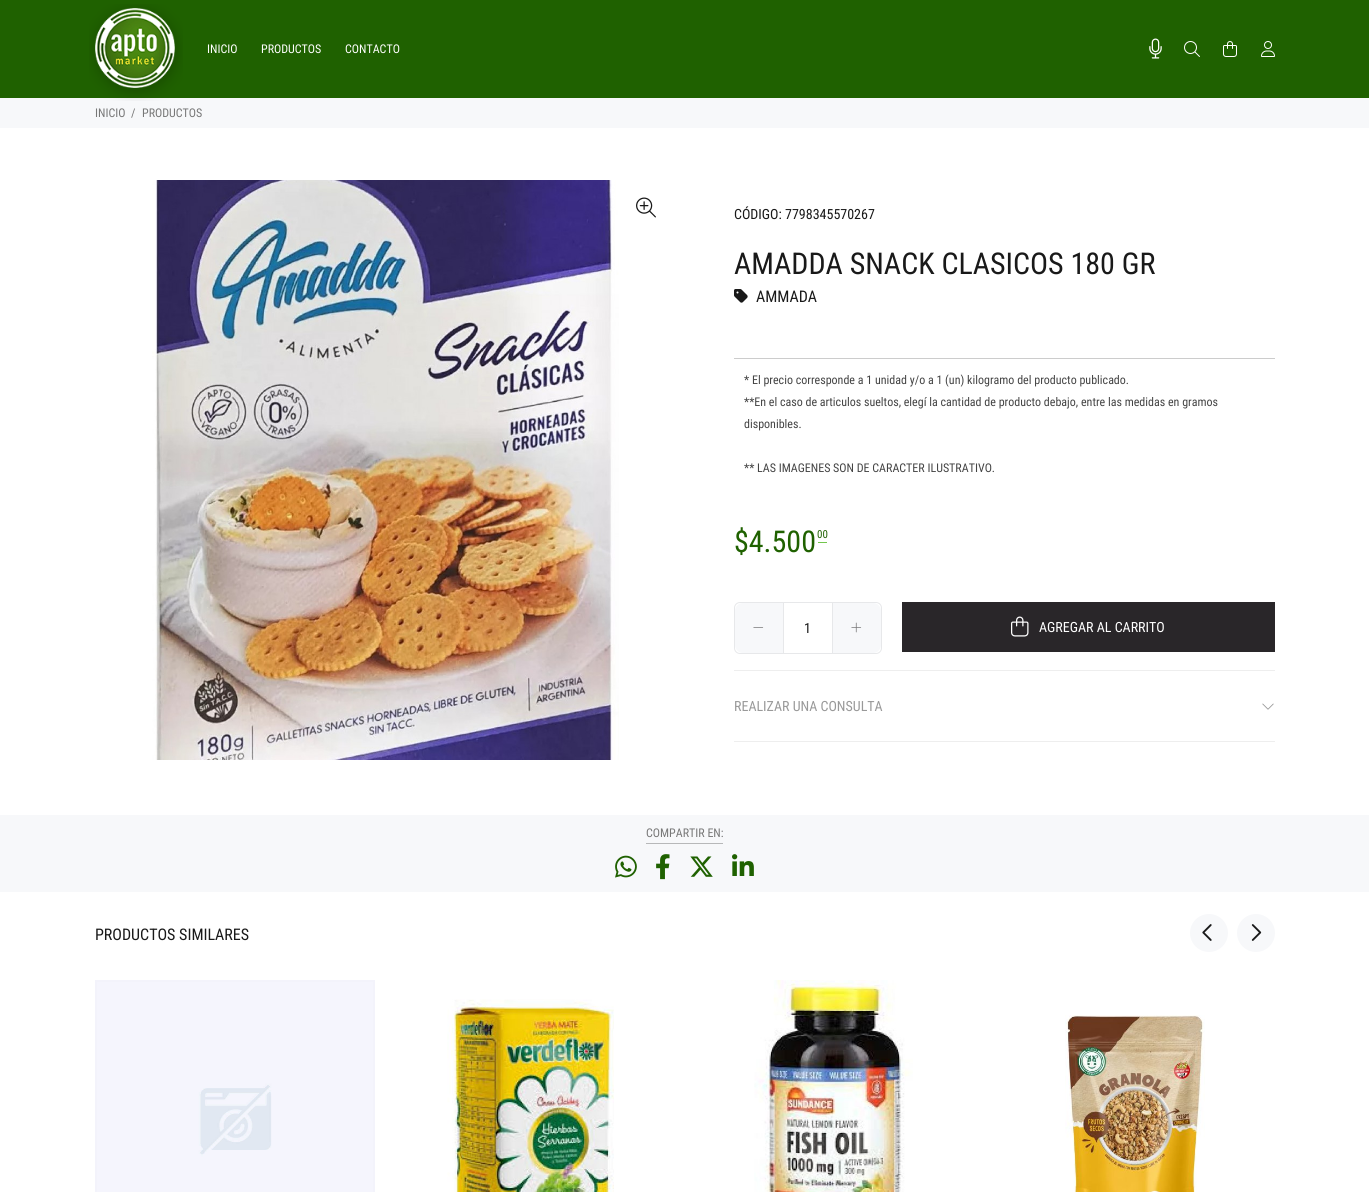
#include <cairo.h>
#include <math.h>
#include <stddef.h>

typedef struct { const char *family; double size; int italic, bold; unsigned color; } style_t;
static cairo_t *ctx;

static void ink(unsigned color) {
    cairo_set_source_rgb(ctx, (color >> 16) / 255.0, (color >> 8 & 255) / 255.0, (color & 255) / 255.0);
}

static void write(double x, double y, const char *s, const style_t *st) {
    cairo_select_font_face(ctx, st->family, st->italic ? CAIRO_FONT_SLANT_ITALIC : CAIRO_FONT_SLANT_NORMAL,
        st->bold ? CAIRO_FONT_WEIGHT_BOLD : CAIRO_FONT_WEIGHT_NORMAL);
    cairo_set_font_size(ctx, st->size);
    ink(st->color);
    cairo_move_to(ctx, x, y);
    cairo_show_text(ctx, s);
}

static void block(double x, double y, double w, double h, unsigned color) {
    ink(color);
    cairo_rectangle(ctx, x, y, w, h);
    cairo_fill(ctx);
}

static void round_path(double x, double y, double w, double h, double r) {
    cairo_new_sub_path(ctx);
    cairo_arc(ctx, x + w - r, y + h - r, r, 0, M_PI / 2);
    cairo_arc(ctx, x + r, y + h - r, r, M_PI / 2, M_PI);
    cairo_arc(ctx, x + r, y + r, r, M_PI, 1.5 * M_PI);
    cairo_arc(ctx, x + w - r, y + r, r, 1.5 * M_PI, 2 * M_PI);
    cairo_close_path(ctx);
}

static void paste(const char *path, double x, double y, double w, double h) {
    cairo_surface_t *image = cairo_image_surface_create_from_png(path);
    cairo_save(ctx);
    cairo_set_source_surface(ctx, image, x, y);
    cairo_rectangle(ctx, x, y, w, h);
    cairo_fill(ctx);
    cairo_restore(ctx);
    cairo_surface_destroy(image);
}

static const style_t s1 = {"Roboto Condensed", 12, 0, 0, 0xffffff};
static const style_t s2 = {"Roboto Condensed", 12, 0, 0, 0x777777};
static const style_t s3 = {"Roboto Condensed", 14, 0, 0, 0x191919};
static const style_t s4 = {"Roboto Condensed", 30, 0, 0, 0x191919};
static const style_t s5 = {"Roboto Condensed", 16, 0, 0, 0x191919};
static const style_t s6 = {"Roboto Condensed", 12, 0, 0, 0x444444};
static const style_t s7 = {"Roboto Condensed", 30, 0, 0, 0x1f6100};
static const style_t s8 = {"Roboto Condensed", 11, 0, 0, 0x1f6100};
static const style_t s9 = {"Roboto Condensed", 14, 0, 0, 0xffffff};
static const style_t s10 = {"Roboto Condensed", 14, 0, 0, 0x999999};

int main(void) {
    cairo_surface_t *surface = cairo_image_surface_create(CAIRO_FORMAT_RGB24, 1369, 1192);
    ctx = cairo_create(surface);
    cairo_font_options_t *options = cairo_font_options_create();
    cairo_font_options_set_hint_metrics(options, CAIRO_HINT_METRICS_OFF);
    cairo_font_options_set_hint_style(options, CAIRO_HINT_STYLE_NONE);
    cairo_set_font_options(ctx, options);
    cairo_set_miter_limit(ctx, 4);
    ink(0xffffff);
    cairo_paint(ctx);
    block(0, 0, 1369, 98, 0x1f6100);
    block(0, 98, 1369, 30, 0xf7f8fa);
    paste("pic1.png", 89, 4, 94, 97);
    write(207, 53, "INICIO", &s1);
    write(261, 53, "PRODUCTOS", &s1);
    write(345, 53, "CONTACTO", &s1);
    paste("pic2.png", 1149, 38, 13, 21);
    paste("pic3.png", 1184, 41, 16, 16);
    paste("pic4.png", 1223, 41, 14, 16);
    paste("pic5.png", 1261, 41, 14, 16);
    write(95, 117, "INICIO", &s2);
    write(131, 117, "/", &s2);
    write(142, 117, "PRODUCTOS", &s2);
    paste("pic6.png", 152, 180, 467, 580);
    paste("pic7.png", 636, 197, 20, 21);
    write(734, 219, "CÓDIGO: 7798345570267", &s3);
    write(734, 274, "AMADDA SNACK CLASICOS 180 GR", &s4);
    paste("pic8.png", 734, 289, 14, 14);
    write(756, 302, "AMMADA", &s5);
    block(734, 358, 541, 1, 0xcccccc);
    write(744, 384, "* El precio corresponde a 1 unidad y/o a 1 (un) kilogramo del producto publicado.", &s6);
    write(744, 406, "**En el caso de articulos sueltos, elegí la cantidad de producto debajo, entre las medidas en gramos", &s6);
    write(744, 428, "disponibles.", &s6);
    write(744, 472, "** LAS IMAGENES SON DE CARACTER ILUSTRATIVO.", &s6);
    write(734, 552, "$4.500", &s7);
    write(817, 538, "00", &s8);
    block(818, 542, 9, 1, 0x73c64d);
    round_path(734.5, 602.5, 147, 51, 5.5);
    ink(0xe7e8ea);
    cairo_set_line_width(ctx, 1);
    cairo_stroke(ctx);
    ink(0xf7f8fa);
    cairo_new_path(ctx);
    cairo_move_to(ctx, 743, 603);
    cairo_line_to(ctx, 784, 603);
    cairo_line_to(ctx, 784, 653);
    cairo_line_to(ctx, 743, 653);
    cairo_curve_to(ctx, 738.5, 653, 735, 649.5, 735, 645);
    cairo_line_to(ctx, 735, 611);
    cairo_curve_to(ctx, 735, 606.5, 738.5, 603, 743, 603);
    cairo_close_path(ctx);
    cairo_fill(ctx);
    block(783, 603, 1, 50, 0xe7e8ea);
    paste("pic9.png", 753, 627, 11, 1);
    write(804, 633, "1", &s3);
    ink(0xf7f8fa);
    cairo_new_path(ctx);
    cairo_move_to(ctx, 832, 603);
    cairo_line_to(ctx, 873, 603);
    cairo_curve_to(ctx, 877.5, 603, 881, 606.5, 881, 611);
    cairo_line_to(ctx, 881, 645);
    cairo_curve_to(ctx, 881, 649.5, 877.5, 653, 873, 653);
    cairo_line_to(ctx, 832, 653);
    cairo_close_path(ctx);
    cairo_fill(ctx);
    block(832, 603, 1, 50, 0xe7e8ea);
    paste("pic10.png", 851, 622, 11, 11);
    block(902, 602, 373, 50, 0x292629);
    paste("pic11.png", 1011, 616, 18, 21);
    write(1039, 632, "AGREGAR AL CARRITO", &s9);
    block(734, 670, 541, 1, 0xeeeeee);
    block(734, 741, 541, 1, 0xeeeeee);
    write(734, 711, "REALIZAR UNA CONSULTA", &s10);
    paste("pic12.png", 1262, 703, 12, 7);
    block(0, 815, 1369, 77, 0xf7f8fa);
    write(646, 837, "COMPARTIR EN:", &s2);
    block(646, 843, 77, 1, 0xb7b8b9);
    paste("pic13.png", 615, 855, 22, 23);
    paste("pic14.png", 656, 854, 14, 26);
    paste("pic15.png", 690, 856, 23, 21);
    paste("pic16.png", 732, 854, 22, 22);
    ink(0xf7f8fa);
    cairo_arc(ctx, 1209, 933, 19, 0, 2 * M_PI);
    cairo_fill(ctx);
    paste("pic17.png", 1202, 924, 10, 17);
    cairo_arc(ctx, 1256, 933, 19, 0, 2 * M_PI);
    cairo_fill(ctx);
    paste("pic18.png", 1251, 924, 11, 17);
    paste("pic19.png", 95, 980, 280, 212);
    paste("pic20.png", 447, 999, 167, 193);
    paste("pic21.png", 754, 980, 159, 212);
    paste("pic22.png", 1065, 1015, 140, 177);
    write(95, 940, "PRODUCTOS SIMILARES", &s5);
    cairo_surface_write_to_png(surface, "screenshot.png");
    cairo_font_options_destroy(options);
    cairo_destroy(ctx);
    cairo_surface_destroy(surface);
    return 0;
}
